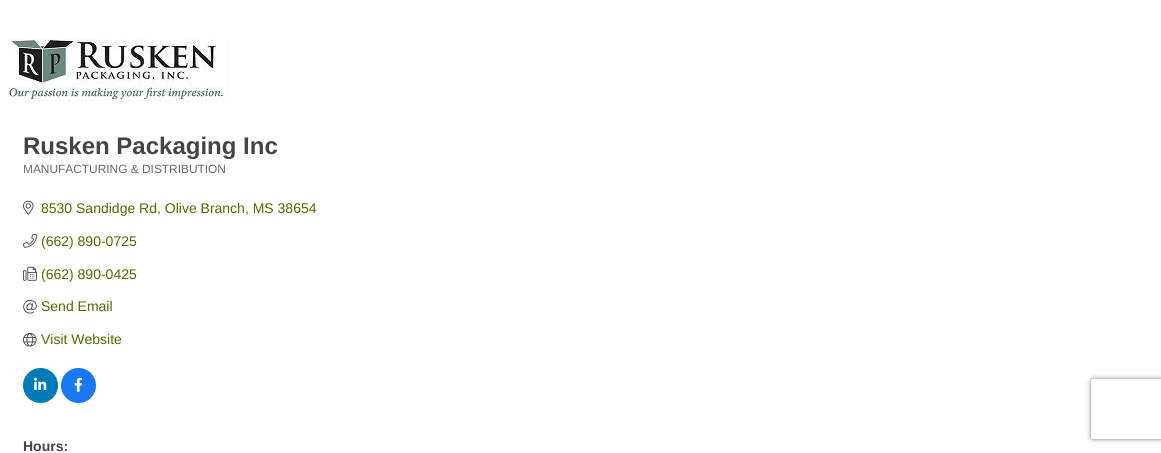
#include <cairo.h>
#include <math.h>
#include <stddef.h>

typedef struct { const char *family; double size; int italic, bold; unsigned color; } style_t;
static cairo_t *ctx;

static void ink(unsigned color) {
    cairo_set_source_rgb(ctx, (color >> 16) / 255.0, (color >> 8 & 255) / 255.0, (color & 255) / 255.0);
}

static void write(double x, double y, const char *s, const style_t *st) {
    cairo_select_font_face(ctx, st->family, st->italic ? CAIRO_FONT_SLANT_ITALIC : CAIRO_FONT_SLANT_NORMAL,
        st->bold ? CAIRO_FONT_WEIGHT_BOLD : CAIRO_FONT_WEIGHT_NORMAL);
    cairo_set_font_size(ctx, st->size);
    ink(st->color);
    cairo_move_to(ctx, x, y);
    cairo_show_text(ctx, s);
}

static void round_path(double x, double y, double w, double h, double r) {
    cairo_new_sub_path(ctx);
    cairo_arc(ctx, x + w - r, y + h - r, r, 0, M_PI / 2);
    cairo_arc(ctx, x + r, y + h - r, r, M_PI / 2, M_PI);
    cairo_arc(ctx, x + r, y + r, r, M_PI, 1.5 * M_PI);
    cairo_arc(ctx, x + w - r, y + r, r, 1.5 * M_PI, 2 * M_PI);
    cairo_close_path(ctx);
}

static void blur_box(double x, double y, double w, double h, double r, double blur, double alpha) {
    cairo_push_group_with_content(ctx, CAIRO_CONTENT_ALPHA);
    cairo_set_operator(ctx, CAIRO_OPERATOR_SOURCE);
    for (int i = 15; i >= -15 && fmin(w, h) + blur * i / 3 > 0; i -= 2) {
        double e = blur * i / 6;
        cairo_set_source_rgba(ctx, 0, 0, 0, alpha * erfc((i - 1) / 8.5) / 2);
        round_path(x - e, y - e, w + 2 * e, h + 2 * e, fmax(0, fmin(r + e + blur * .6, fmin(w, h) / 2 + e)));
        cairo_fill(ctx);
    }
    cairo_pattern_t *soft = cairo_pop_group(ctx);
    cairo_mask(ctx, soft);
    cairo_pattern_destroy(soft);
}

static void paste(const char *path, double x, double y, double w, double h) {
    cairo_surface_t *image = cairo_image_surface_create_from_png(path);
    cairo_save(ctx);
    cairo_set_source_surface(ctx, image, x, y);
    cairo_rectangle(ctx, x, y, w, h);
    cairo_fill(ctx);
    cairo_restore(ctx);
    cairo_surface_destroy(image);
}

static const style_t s1 = {"Liberation Sans", 24, 0, 1, 0x444444};
static const style_t s2 = {"Liberation Sans", 11.9, 0, 0, 0x696969};
static const style_t s3 = {"Liberation Sans", 14, 0, 0, 0x4f6c00};
static const style_t s4 = {"Liberation Sans", 14, 0, 1, 0x444444};

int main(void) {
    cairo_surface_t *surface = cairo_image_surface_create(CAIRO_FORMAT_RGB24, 1161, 453);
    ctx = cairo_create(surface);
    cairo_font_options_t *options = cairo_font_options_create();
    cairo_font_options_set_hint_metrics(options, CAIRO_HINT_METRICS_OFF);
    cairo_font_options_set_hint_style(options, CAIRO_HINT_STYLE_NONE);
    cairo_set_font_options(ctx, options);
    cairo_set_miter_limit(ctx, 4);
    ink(0xffffff);
    cairo_paint(ctx);
    paste("pic1.png", 8, 38, 221, 64);
    write(23, 154, "Rusken Packaging Inc", &s1);
    write(23, 173, "MANUFACTURING & DISTRIBUTION", &s2);
    paste("pic2.png", 23, 200, 11, 15);
    write(41, 213, "8530 Sandidge Rd, Olive Branch, MS 38654", &s3);
    paste("pic3.png", 23, 233, 14, 15);
    write(41, 246, "(662) 890-0725", &s3);
    paste("pic4.png", 23, 266, 14, 15);
    write(41, 279, "(662) 890-0425", &s3);
    paste("pic5.png", 23, 300, 14, 14);
    write(41, 311, "Send Email", &s3);
    paste("pic6.png", 23, 333, 14, 14);
    write(41, 344, "Visit Website", &s3);
    ink(0x007bb5);
    cairo_new_path(ctx);
    cairo_arc(ctx, 40.5, 385.5, 17.5, 0, 2 * M_PI);
    cairo_fill(ctx);
    paste("pic7.png", 34, 377, 13, 13);
    ink(0x1877f2);
    cairo_arc(ctx, 78.5, 385.5, 17.5, 0, 2 * M_PI);
    cairo_fill(ctx);
    paste("pic8.png", 74, 377, 9, 15);
    write(23, 451, "Hours:", &s4);
    cairo_save(ctx);
    cairo_set_fill_rule(ctx, CAIRO_FILL_RULE_EVEN_ODD);
    cairo_new_path(ctx);
    cairo_move_to(ctx, 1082, 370);
    cairo_line_to(ctx, 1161, 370);
    cairo_line_to(ctx, 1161, 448);
    cairo_line_to(ctx, 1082, 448);
    cairo_close_path(ctx);
    cairo_move_to(ctx, 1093, 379);
    cairo_line_to(ctx, 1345, 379);
    cairo_curve_to(ctx, 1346, 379, 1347, 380, 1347, 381);
    cairo_line_to(ctx, 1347, 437);
    cairo_curve_to(ctx, 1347, 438, 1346, 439, 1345, 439);
    cairo_line_to(ctx, 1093, 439);
    cairo_curve_to(ctx, 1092, 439, 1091, 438, 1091, 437);
    cairo_line_to(ctx, 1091, 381);
    cairo_curve_to(ctx, 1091, 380, 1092, 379, 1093, 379);
    cairo_close_path(ctx);
    cairo_clip(ctx);
    ink(0x808080);
    blur_box(1091, 379, 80, 60, 2, 2.5, 1);
    cairo_restore(ctx);
    cairo_surface_write_to_png(surface, "screenshot.png");
    cairo_font_options_destroy(options);
    cairo_destroy(ctx);
    cairo_surface_destroy(surface);
    return 0;
}
